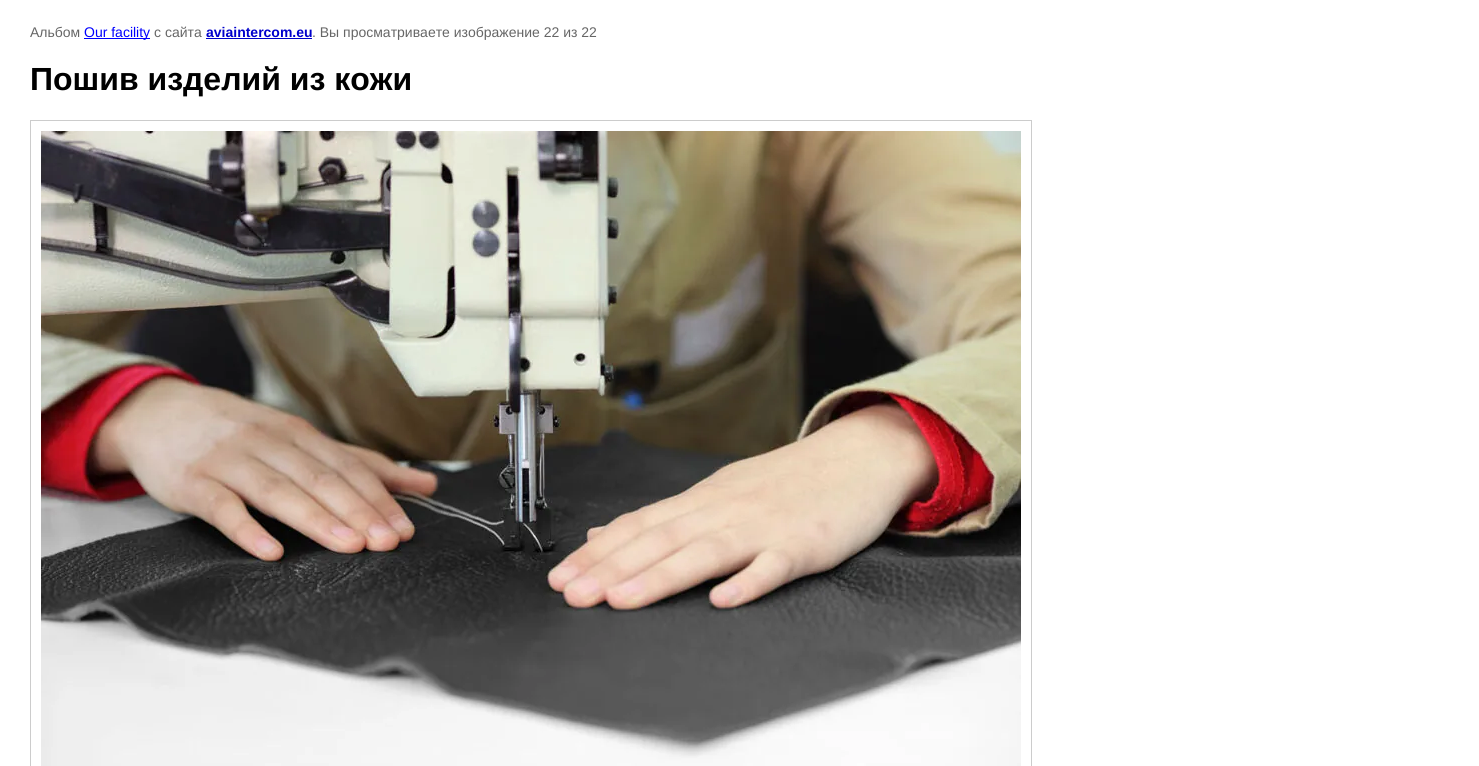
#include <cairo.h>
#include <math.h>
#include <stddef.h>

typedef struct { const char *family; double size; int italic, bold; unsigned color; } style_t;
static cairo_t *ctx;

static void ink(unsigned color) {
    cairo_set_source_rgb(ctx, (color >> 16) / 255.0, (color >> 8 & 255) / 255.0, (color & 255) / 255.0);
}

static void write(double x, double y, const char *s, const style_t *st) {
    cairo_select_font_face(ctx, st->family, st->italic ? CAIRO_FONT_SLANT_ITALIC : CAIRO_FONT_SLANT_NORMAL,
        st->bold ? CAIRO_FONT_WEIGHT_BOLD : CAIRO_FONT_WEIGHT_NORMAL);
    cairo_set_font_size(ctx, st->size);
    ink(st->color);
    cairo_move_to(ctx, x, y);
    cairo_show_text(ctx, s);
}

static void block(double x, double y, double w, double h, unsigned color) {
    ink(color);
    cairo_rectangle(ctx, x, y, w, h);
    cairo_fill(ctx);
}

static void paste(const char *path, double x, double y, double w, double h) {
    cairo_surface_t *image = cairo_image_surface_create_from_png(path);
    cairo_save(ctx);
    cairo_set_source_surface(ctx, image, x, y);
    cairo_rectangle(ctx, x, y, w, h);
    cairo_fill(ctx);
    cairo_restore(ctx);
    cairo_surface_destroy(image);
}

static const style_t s1 = {"Liberation Sans", 14, 0, 0, 0x666666};
static const style_t s2 = {"Liberation Sans", 14, 0, 0, 0x0000ff};
static const style_t s3 = {"Liberation Sans", 14, 0, 1, 0x0000cc};
static const style_t s4 = {"Liberation Sans", 32, 0, 1, 0x000000};

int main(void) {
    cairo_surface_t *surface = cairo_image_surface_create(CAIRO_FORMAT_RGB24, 1479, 766);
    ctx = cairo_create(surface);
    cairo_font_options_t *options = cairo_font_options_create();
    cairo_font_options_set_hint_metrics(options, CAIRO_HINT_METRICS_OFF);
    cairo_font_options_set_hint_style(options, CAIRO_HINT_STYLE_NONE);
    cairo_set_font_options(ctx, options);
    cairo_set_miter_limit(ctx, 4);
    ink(0xffffff);
    cairo_paint(ctx);
    write(30, 37, "Альбом", &s1);
    block(84, 38, 66, 1, 0x0000ff);
    write(84, 37, "Our facility", &s2);
    write(154, 37, "с сайта", &s1);
    write(206, 37, "aviaintercom.eu", &s3);
    block(206, 38, 106, 1, 0x0000cc);
    write(312, 37, ". Вы просматриваете изображение 22 из 22", &s1);
    write(30, 90, "Пошив изделий из кожи", &s4);
    cairo_rectangle(ctx, 30.5, 120.5, 1001, 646);
    ink(0xcccccc);
    cairo_set_line_width(ctx, 1);
    cairo_stroke(ctx);
    paste("pic1.png", 41, 131, 980, 635);
    cairo_surface_write_to_png(surface, "screenshot.png");
    cairo_font_options_destroy(options);
    cairo_destroy(ctx);
    cairo_surface_destroy(surface);
    return 0;
}
